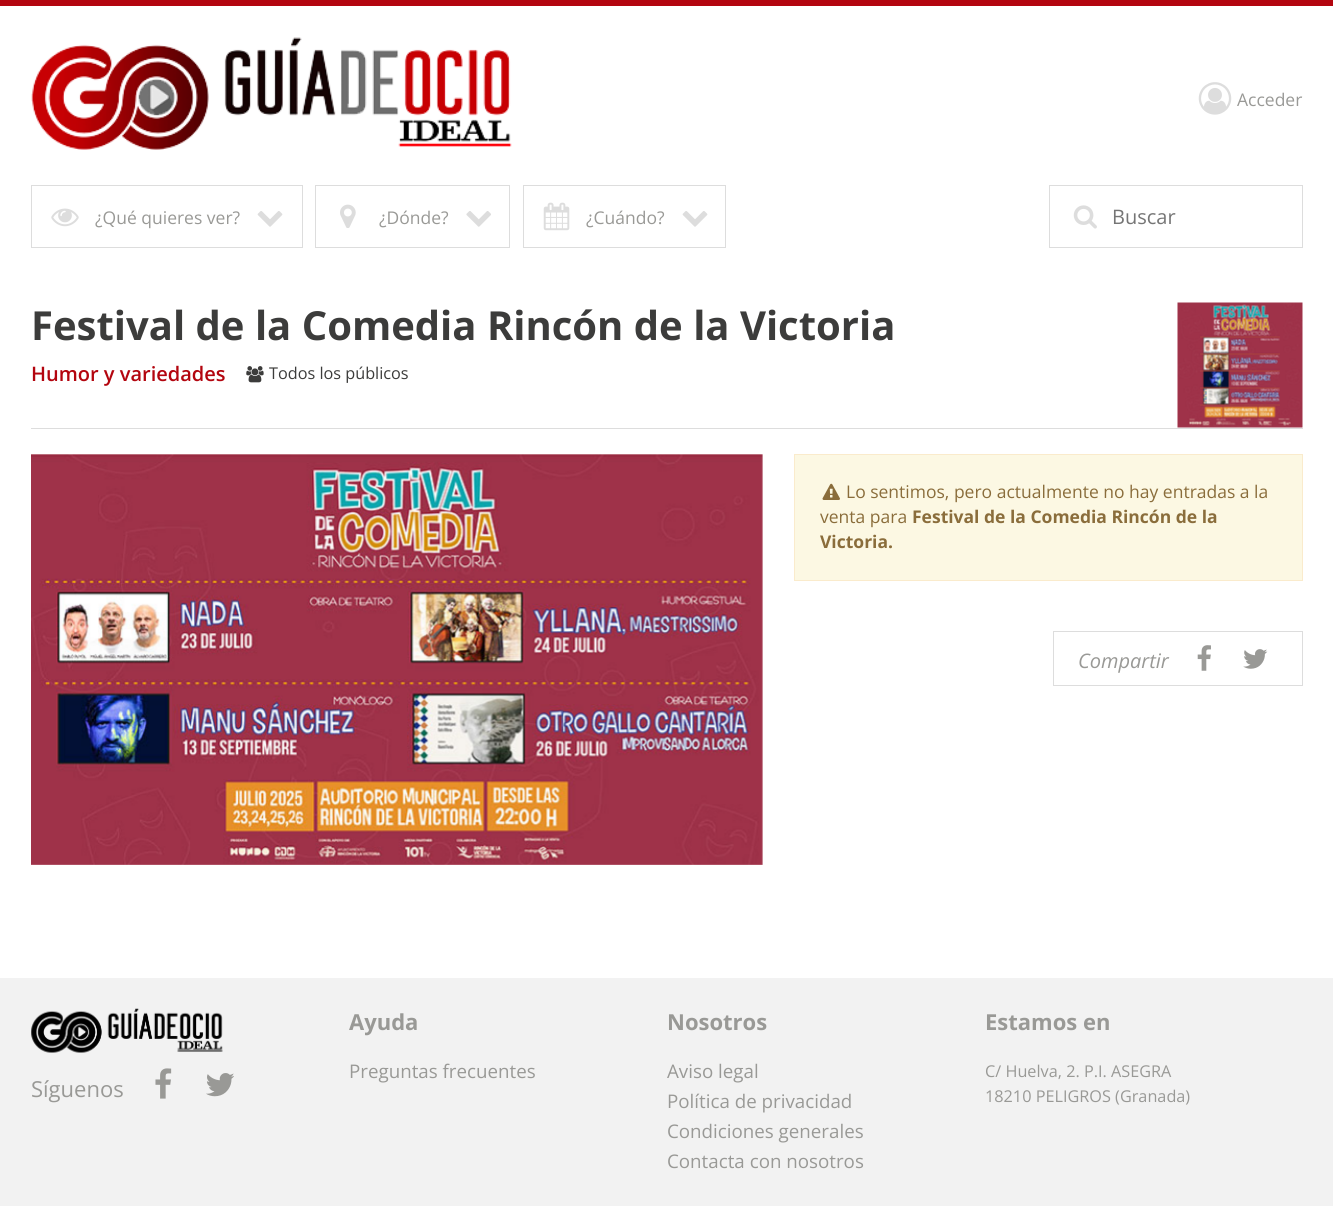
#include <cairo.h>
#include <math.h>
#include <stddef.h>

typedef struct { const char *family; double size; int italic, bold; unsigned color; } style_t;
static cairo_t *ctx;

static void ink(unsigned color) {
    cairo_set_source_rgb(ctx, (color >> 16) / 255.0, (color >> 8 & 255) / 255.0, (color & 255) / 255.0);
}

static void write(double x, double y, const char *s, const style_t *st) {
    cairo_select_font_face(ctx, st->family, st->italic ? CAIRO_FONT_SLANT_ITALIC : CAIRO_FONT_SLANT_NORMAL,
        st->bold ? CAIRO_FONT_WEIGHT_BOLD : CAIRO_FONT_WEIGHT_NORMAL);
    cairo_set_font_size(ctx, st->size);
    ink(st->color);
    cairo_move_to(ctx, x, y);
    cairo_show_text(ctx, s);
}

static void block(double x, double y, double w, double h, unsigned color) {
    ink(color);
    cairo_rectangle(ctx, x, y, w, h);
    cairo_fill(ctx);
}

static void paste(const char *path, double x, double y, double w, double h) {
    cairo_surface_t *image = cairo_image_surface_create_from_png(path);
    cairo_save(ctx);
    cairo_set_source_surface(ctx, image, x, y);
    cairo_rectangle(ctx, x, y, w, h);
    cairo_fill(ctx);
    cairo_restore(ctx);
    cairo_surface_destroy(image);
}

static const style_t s1 = {"Open Sans", 17.5, 0, 0, 0x999996};
static const style_t s2 = {"Open Sans", 20, 0, 0, 0x757575};
static const style_t s3 = {"Open Sans", 40, 0, 1, 0x3c3c3b};
static const style_t s4 = {"Open Sans SemiBold", 20, 0, 0, 0xb3050f};
static const style_t s5 = {"Open Sans", 16.25, 0, 0, 0x3c3c3b};
static const style_t s6 = {"Open Sans", 17.5, 0, 0, 0x8a6d3b};
static const style_t s7 = {"Open Sans", 17.5, 0, 1, 0x8a6d3b};
static const style_t s8 = {"Open Sans", 20, 1, 0, 0x999996};
static const style_t s9 = {"Open Sans", 22, 0, 0, 0x999996};
static const style_t s10 = {"Open Sans", 22, 0, 1, 0x999996};
static const style_t s11 = {"Open Sans", 18.75, 0, 0, 0x999996};
static const style_t s12 = {"Open Sans", 16.25, 0, 0, 0x999996};

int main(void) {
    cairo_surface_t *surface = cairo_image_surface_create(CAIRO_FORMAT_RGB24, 1333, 1206);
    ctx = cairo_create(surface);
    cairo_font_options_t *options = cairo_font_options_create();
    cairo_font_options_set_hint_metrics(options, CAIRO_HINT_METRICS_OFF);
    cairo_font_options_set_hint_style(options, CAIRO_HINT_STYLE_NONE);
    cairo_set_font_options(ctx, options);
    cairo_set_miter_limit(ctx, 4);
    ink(0xffffff);
    cairo_paint(ctx);
    block(0, 0, 1333, 6, 0xb3050f);
    paste("pic1.png", 31, 37, 481, 113);
    paste("pic2.png", 1198, 82, 34, 33);
    write(1237, 106, "Acceder", &s1);
    cairo_rectangle(ctx, 31.5, 185.5, 271, 62);
    ink(0xdddddd);
    cairo_set_line_width(ctx, 1);
    cairo_stroke(ctx);
    paste("pic3.png", 51, 208, 28, 19);
    write(95, 224, "¿Qué quieres ver?", &s1);
    paste("pic4.png", 257, 211, 26, 16);
    cairo_rectangle(ctx, 315.5, 185.5, 194, 62);
    ink(0xdddddd);
    cairo_stroke(ctx);
    paste("pic5.png", 340, 204, 16, 24);
    write(379, 224, "¿Dónde?", &s1);
    paste("pic6.png", 466, 211, 25, 16);
    cairo_rectangle(ctx, 523.5, 185.5, 202, 62);
    ink(0xdddddd);
    cairo_stroke(ctx);
    paste("pic7.png", 543, 202, 27, 29);
    write(586, 224, "¿Cuándo?", &s1);
    paste("pic4.png", 682, 211, 26, 16);
    cairo_rectangle(ctx, 1049.5, 185.5, 253, 62);
    ink(0xdddddd);
    cairo_stroke(ctx);
    paste("pic8.png", 1073, 205, 24, 24);
    write(1112, 224, "Buscar", &s2);
    block(31, 428, 1272, 1, 0xdddddd);
    write(31, 340, "Festival de la Comedia Rincón de la Victoria", &s3);
    paste("pic9.png", 1177, 302, 126, 126);
    write(31, 381, "Humor y variedades", &s4);
    paste("pic10.png", 246, 366, 18, 17);
    write(269, 379, "Todos los públicos", &s5);
    paste("pic11.png", 31, 454, 732, 411);
    ink(0xfcf8e3);
    cairo_rectangle(ctx, 794.5, 454.5, 508, 126);
    cairo_fill_preserve(ctx);
    ink(0xfaebcc);
    cairo_stroke(ctx);
    paste("pic12.png", 822, 483, 18, 17);
    write(846, 498, "Lo sentimos, pero actualmente no hay entradas a la", &s6);
    write(820, 523, "venta para", &s6);
    write(912, 523, "Festival de la Comedia Rincón de la", &s7);
    write(820, 548, "Victoria.", &s7);
    cairo_rectangle(ctx, 1053.5, 631.5, 249, 54);
    ink(0xdddddd);
    cairo_stroke(ctx);
    write(1078, 668, "Compartir", &s8);
    paste("pic13.png", 1197, 645, 14, 26);
    paste("pic14.png", 1243, 649, 25, 20);
    block(0, 978, 1333, 228, 0xf2f2f2);
    paste("pic15.png", 31, 1008, 192, 45);
    write(31, 1097, "Síguenos", &s9);
    paste("pic16.png", 155, 1068, 17, 31);
    paste("pic17.png", 206, 1073, 28, 24);
    write(349, 1030, "Ayuda", &s10);
    write(349, 1078, "Preguntas frecuentes", &s11);
    write(667, 1030, "Nosotros", &s10);
    write(667, 1078, "Aviso legal", &s11);
    write(667, 1108, "Política de privacidad", &s11);
    write(667, 1138, "Condiciones generales", &s11);
    write(667, 1168, "Contacta con nosotros", &s11);
    write(985, 1030, "Estamos en", &s10);
    write(985, 1077, "C/ Huelva, 2. P.I. ASEGRA", &s12);
    write(985, 1102, "18210 PELIGROS (Granada)", &s12);
    cairo_surface_write_to_png(surface, "screenshot.png");
    cairo_font_options_destroy(options);
    cairo_destroy(ctx);
    cairo_surface_destroy(surface);
    return 0;
}
